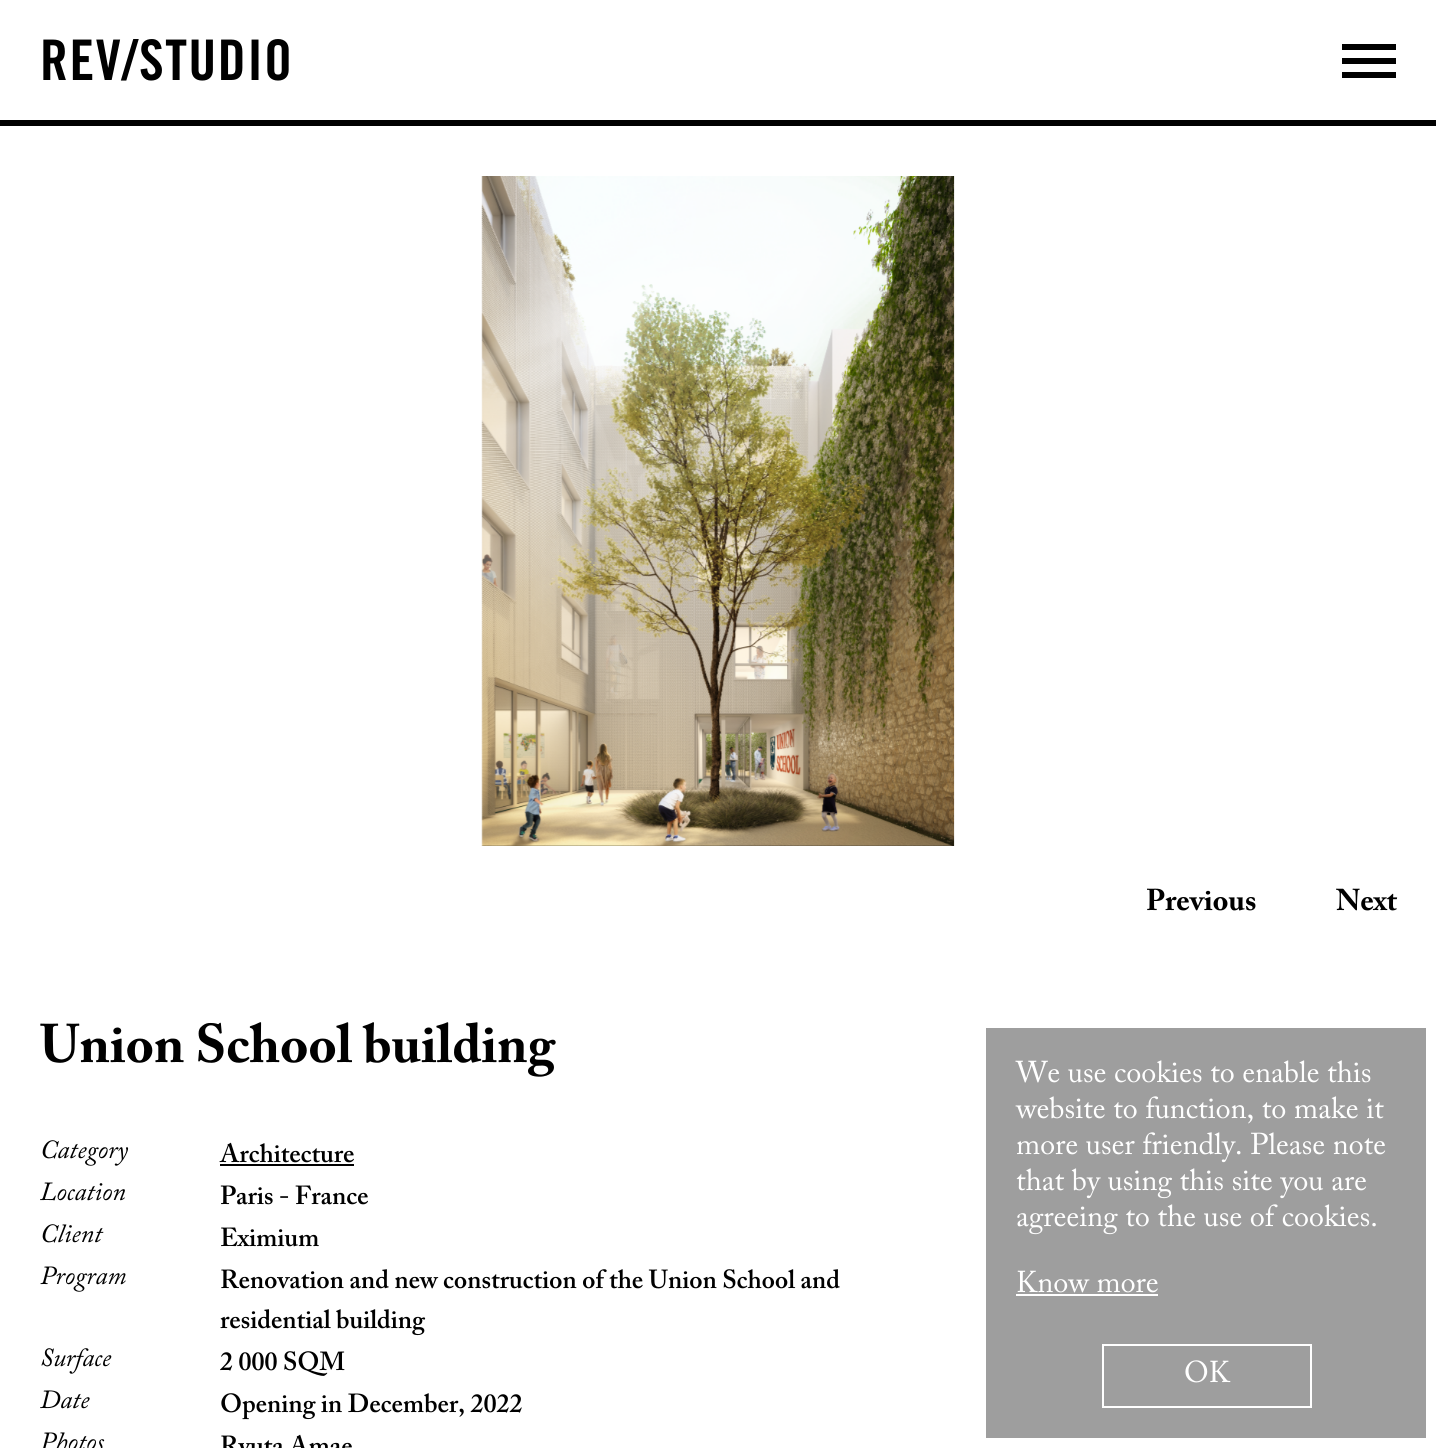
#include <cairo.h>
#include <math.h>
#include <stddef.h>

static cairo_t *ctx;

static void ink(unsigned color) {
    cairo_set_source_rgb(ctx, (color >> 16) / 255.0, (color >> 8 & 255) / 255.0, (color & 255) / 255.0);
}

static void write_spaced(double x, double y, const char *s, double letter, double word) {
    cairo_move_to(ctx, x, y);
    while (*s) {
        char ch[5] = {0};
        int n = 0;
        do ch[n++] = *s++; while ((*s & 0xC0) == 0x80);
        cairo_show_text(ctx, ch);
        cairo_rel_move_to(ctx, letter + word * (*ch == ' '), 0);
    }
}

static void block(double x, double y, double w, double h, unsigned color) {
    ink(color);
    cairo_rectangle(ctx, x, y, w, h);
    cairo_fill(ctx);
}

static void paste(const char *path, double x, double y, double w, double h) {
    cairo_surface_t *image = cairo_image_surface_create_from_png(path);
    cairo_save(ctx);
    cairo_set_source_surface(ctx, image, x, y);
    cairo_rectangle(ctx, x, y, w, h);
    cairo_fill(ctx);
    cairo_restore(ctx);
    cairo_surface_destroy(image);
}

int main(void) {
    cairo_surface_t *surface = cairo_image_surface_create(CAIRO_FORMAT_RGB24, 1436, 1448);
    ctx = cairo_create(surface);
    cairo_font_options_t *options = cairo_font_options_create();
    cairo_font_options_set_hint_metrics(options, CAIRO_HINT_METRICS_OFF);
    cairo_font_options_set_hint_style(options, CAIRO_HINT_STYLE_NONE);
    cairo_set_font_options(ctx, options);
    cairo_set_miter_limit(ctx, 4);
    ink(0xffffff);
    cairo_paint(ctx);
    cairo_select_font_face(ctx, "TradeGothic", CAIRO_FONT_SLANT_NORMAL, CAIRO_FONT_WEIGHT_BOLD);
    cairo_set_font_size(ctx, 56);
    ink(0x000000);
    write_spaced(40, 80, "REV/STUDIO", 1.4, 0);
    block(1342, 58, 54, 6, 0x000000);
    block(1342, 44, 54, 6, 0x000000);
    block(1342, 72, 54, 6, 0x000000);
    block(0, 120, 1436, 6, 0x000000);
    paste("pic1.png", 481, 176, 474, 670);
    paste("pic2.png", 1147, 888, 109, 23);
    paste("pic3.png", 1336, 888, 62, 23);
    paste("pic4.png", 40, 1022, 516, 55);
    paste("pic5.png", 42, 1140, 87, 26);
    paste("pic6.png", 219, 1142, 135, 21);
    block(220, 1164, 134, 2, 0x000000);
    paste("pic7.png", 40, 1182, 85, 19);
    paste("pic8.png", 220, 1185, 148, 20);
    paste("pic9.png", 42, 1224, 62, 19);
    paste("pic10.png", 221, 1227, 98, 20);
    paste("pic11.png", 40, 1266, 86, 26);
    paste("pic12.png", 221, 1269, 619, 20);
    paste("pic13.png", 220, 1309, 206, 27);
    paste("pic14.png", 41, 1348, 71, 26);
    paste("pic15.png", 220, 1351, 125, 25);
    paste("pic16.png", 40, 1390, 50, 19);
    paste("pic17.png", 221, 1393, 301, 27);
    paste("pic18.png", 43, 1432, 62, 16);
    paste("pic19.png", 221, 1434, 131, 14);
    block(986, 1028, 440, 410, 0x9e9e9e);
    paste("pic20.png", 1015, 1060, 356, 23);
    paste("pic21.png", 1015, 1096, 369, 28);
    paste("pic22.png", 1017, 1132, 369, 31);
    paste("pic23.png", 1016, 1168, 350, 31);
    paste("pic24.png", 1017, 1204, 359, 31);
    paste("pic25.png", 1017, 1270, 141, 23);
    block(1016, 1294, 142, 2, 0xffffff);
    cairo_rectangle(ctx, 1103, 1345, 208, 62);
    cairo_stroke(ctx);
    paste("pic26.png", 1185, 1360, 46, 23);
    cairo_surface_write_to_png(surface, "screenshot.png");
    cairo_font_options_destroy(options);
    cairo_destroy(ctx);
    cairo_surface_destroy(surface);
    return 0;
}
